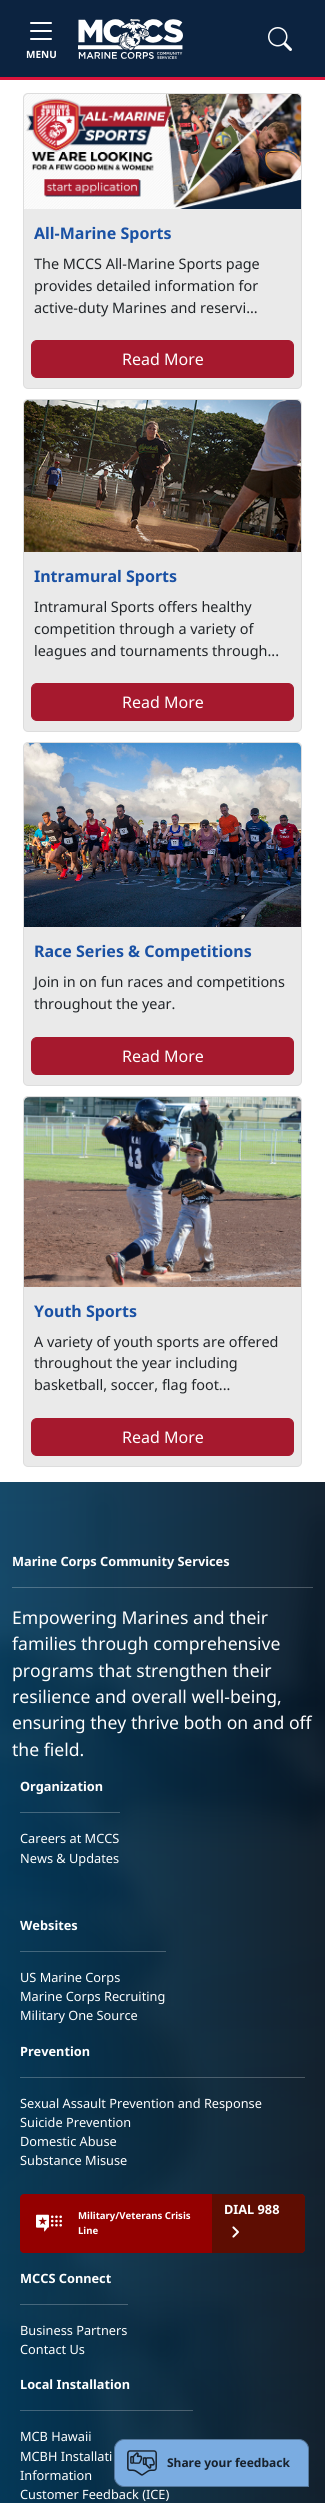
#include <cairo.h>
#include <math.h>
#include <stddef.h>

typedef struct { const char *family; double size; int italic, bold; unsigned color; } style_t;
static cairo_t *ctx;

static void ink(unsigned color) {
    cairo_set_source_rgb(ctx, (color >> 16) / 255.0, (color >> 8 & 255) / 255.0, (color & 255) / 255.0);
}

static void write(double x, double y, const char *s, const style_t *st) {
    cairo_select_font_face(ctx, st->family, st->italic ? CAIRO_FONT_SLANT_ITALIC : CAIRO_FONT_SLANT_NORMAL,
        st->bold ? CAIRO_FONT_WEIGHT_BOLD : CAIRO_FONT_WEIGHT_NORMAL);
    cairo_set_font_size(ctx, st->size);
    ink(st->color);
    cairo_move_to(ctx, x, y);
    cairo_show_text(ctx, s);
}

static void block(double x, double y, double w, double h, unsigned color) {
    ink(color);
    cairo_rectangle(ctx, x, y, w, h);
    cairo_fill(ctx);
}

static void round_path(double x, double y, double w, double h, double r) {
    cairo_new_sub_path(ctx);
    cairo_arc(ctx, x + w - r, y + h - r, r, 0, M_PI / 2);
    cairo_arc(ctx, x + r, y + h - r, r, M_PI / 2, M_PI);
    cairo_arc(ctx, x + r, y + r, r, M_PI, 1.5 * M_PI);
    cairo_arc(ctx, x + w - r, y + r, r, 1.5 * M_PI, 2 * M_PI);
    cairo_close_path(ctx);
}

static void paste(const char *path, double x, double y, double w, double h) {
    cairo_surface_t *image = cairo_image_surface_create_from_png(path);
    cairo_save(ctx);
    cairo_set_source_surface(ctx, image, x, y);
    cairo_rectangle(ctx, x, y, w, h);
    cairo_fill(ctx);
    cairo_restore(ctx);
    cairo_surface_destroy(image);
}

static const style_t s1 = {"Noto Sans", 10, 0, 1, 0xffffff};
static const style_t s2 = {"Noto Sans", 16, 0, 1, 0x1a51a4};
static const style_t s3 = {"Noto Sans", 14.4, 0, 0, 0x212529};
static const style_t s4 = {"Noto Sans", 16, 0, 0, 0xffffff};
static const style_t s5 = {"Noto Sans", 12.75, 0, 1, 0xffffff};
static const style_t s6 = {"Noto Sans", 17.6, 0, 0, 0xffffff};
static const style_t s7 = {"Noto Sans", 12.75, 0, 0, 0xffffff};
static const style_t s8 = {"Noto Sans", 9.6, 0, 1, 0xffffff};
static const style_t s9 = {"Noto Sans", 12, 0, 1, 0x18222d};

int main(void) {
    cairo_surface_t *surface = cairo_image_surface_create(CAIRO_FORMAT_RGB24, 325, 2503);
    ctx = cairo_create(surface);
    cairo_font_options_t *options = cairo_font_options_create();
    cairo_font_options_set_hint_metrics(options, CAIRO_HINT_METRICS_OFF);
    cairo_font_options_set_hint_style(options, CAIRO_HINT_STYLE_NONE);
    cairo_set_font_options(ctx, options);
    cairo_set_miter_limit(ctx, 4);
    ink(0xffffff);
    cairo_paint(ctx);
    block(0, 0, 325, 77, 0x0c2340);
    block(0, 77, 325, 3, 0xdc143c);
    paste("pic1.png", 268, 27, 24, 24);
    paste("pic2.png", 30, 22, 22, 18);
    write(26, 58, "MENU", &s1);
    paste("pic3.png", 78, 19, 105, 40);
    ink(0xeaeaea);
    round_path(23.5, 93.5, 278, 295, 4.5);
    cairo_fill_preserve(ctx);
    ink(0xdddddd);
    cairo_set_line_width(ctx, 1);
    cairo_stroke(ctx);
    paste("pic4.png", 24, 94, 277, 115);
    write(34, 239, "All-Marine Sports", &s2);
    write(34, 269, "The MCCS All-Marine Sports page", &s3);
    write(34, 291, "provides detailed information for", &s3);
    write(34, 313, "active-duty Marines and reservi...", &s3);
    ink(0xa6192e);
    round_path(31.5, 340.5, 262, 37, 5.5);
    cairo_fill_preserve(ctx);
    cairo_stroke(ctx);
    write(122, 365, "Read More", &s4);
    ink(0xeaeaea);
    round_path(23.5, 399.5, 278, 332, 4.5);
    cairo_fill_preserve(ctx);
    ink(0xdddddd);
    cairo_stroke(ctx);
    paste("pic5.png", 24, 400, 277, 152);
    write(34, 582, "Intramural Sports", &s2);
    write(34, 612, "Intramural Sports offers healthy", &s3);
    write(34, 634, "competition through a variety of", &s3);
    write(34, 656, "leagues and tournaments through...", &s3);
    ink(0xa6192e);
    round_path(31.5, 683.5, 262, 37, 5.5);
    cairo_fill_preserve(ctx);
    cairo_stroke(ctx);
    write(122, 708, "Read More", &s4);
    ink(0xeaeaea);
    round_path(23.5, 742.5, 278, 343, 4.5);
    cairo_fill_preserve(ctx);
    ink(0xdddddd);
    cairo_stroke(ctx);
    paste("pic6.png", 24, 743, 277, 184);
    write(34, 957, "Race Series & Competitions", &s2);
    write(34, 987, "Join in on fun races and competitions", &s3);
    write(34, 1009, "throughout the year.", &s3);
    ink(0xa6192e);
    round_path(31.5, 1037.5, 262, 37, 5.5);
    cairo_fill_preserve(ctx);
    cairo_stroke(ctx);
    write(122, 1062, "Read More", &s4);
    ink(0xeaeaea);
    round_path(23.5, 1096.5, 278, 370, 4.5);
    cairo_fill_preserve(ctx);
    ink(0xdddddd);
    cairo_stroke(ctx);
    paste("pic7.png", 24, 1097, 277, 190);
    write(34, 1317, "Youth Sports", &s2);
    write(34, 1347, "A variety of youth sports are offered", &s3);
    write(34, 1368, "throughout the year including", &s3);
    write(34, 1390, "basketball, soccer, flag foot...", &s3);
    ink(0xa6192e);
    round_path(31.5, 1418.5, 262, 37, 5.5);
    cairo_fill_preserve(ctx);
    cairo_stroke(ctx);
    write(122, 1443, "Read More", &s4);
    paste("pic8.png", 0, 1482, 325, 1021);
    write(12, 1566, "Marine Corps Community Services", &s5);
    cairo_set_source_rgba(ctx, 0.973, 0.976, 0.98, 0.25);
    cairo_rectangle(ctx, 12, 1587, 301, 1);
    cairo_fill(ctx);
    write(12, 1624, "Empowering Marines and their", &s6);
    write(12, 1650, "families through comprehensive", &s6);
    write(12, 1677, "programs that strengthen their", &s6);
    write(12, 1703, "resilience and overall well-being,", &s6);
    write(12, 1729, "ensuring they thrive both on and off", &s6);
    write(12, 1756, "the field.", &s6);
    write(20, 1791, "Organization", &s5);
    cairo_set_source_rgba(ctx, 0.973, 0.976, 0.98, 0.25);
    cairo_rectangle(ctx, 20, 1812, 100, 1);
    cairo_fill(ctx);
    write(20, 1843, "Careers at MCCS", &s7);
    write(20, 1863, "News & Updates", &s7);
    write(20, 1930, "Websites", &s5);
    cairo_set_source_rgba(ctx, 0.973, 0.976, 0.98, 0.25);
    cairo_rectangle(ctx, 20, 1951, 146, 1);
    cairo_fill(ctx);
    write(20, 1982, "US Marine Corps", &s7);
    write(20, 2001, "Marine Corps Recruiting", &s7);
    write(20, 2020, "Military One Source", &s7);
    write(20, 2056, "Prevention", &s5);
    cairo_set_source_rgba(ctx, 0.973, 0.976, 0.98, 0.25);
    cairo_rectangle(ctx, 20, 2077, 285, 1);
    cairo_fill(ctx);
    write(20, 2108, "Sexual Assault Prevention and Response", &s7);
    write(20, 2127, "Suicide Prevention", &s7);
    write(20, 2146, "Domestic Abuse", &s7);
    write(20, 2165, "Substance Misuse", &s7);
    ink(0x940000);
    round_path(20, 2194, 285, 59, 4);
    cairo_fill(ctx);
    ink(0x5e0d02);
    cairo_new_path(ctx);
    cairo_move_to(ctx, 212, 2194);
    cairo_line_to(ctx, 301, 2194);
    cairo_curve_to(ctx, 303, 2194, 305, 2196, 305, 2198);
    cairo_line_to(ctx, 305, 2249);
    cairo_curve_to(ctx, 305, 2251, 303, 2253, 301, 2253);
    cairo_line_to(ctx, 212, 2253);
    cairo_close_path(ctx);
    cairo_fill(ctx);
    write(224, 2214, "DIAL 988", &s5);
    paste("pic9.png", 232, 2226, 7, 12);
    paste("pic10.png", 36, 2214, 26, 18);
    write(78, 2219, "Military/Veterans Crisis", &s8);
    write(78, 2234, "Line", &s8);
    write(20, 2283, "MCCS Connect", &s5);
    cairo_set_source_rgba(ctx, 0.973, 0.976, 0.98, 0.25);
    cairo_rectangle(ctx, 20, 2304, 108, 1);
    cairo_fill(ctx);
    write(20, 2335, "Business Partners", &s7);
    write(20, 2354, "Contact Us", &s7);
    write(20, 2389, "Local Installation", &s5);
    cairo_set_source_rgba(ctx, 0.973, 0.976, 0.98, 0.25);
    cairo_rectangle(ctx, 20, 2410, 173, 1);
    cairo_fill(ctx);
    write(20, 2441, "MCB Hawaii", &s7);
    write(20, 2461, "MCBH Installati", &s7);
    write(20, 2480, "Information", &s7);
    write(20, 2499, "Customer Feedback (ICE)", &s7);
    ink(0x7aace1);
    cairo_new_path(ctx);
    cairo_move_to(ctx, 124, 2439.5);
    cairo_line_to(ctx, 299, 2439.5);
    cairo_curve_to(ctx, 304, 2439.5, 308.5, 2444, 308.5, 2449);
    cairo_line_to(ctx, 308.5, 2486.5);
    cairo_line_to(ctx, 124, 2486.5);
    cairo_curve_to(ctx, 119, 2486.5, 114.5, 2482, 114.5, 2477);
    cairo_line_to(ctx, 114.5, 2449);
    cairo_curve_to(ctx, 114.5, 2444, 119, 2439.5, 124, 2439.5);
    cairo_close_path(ctx);
    cairo_fill_preserve(ctx);
    ink(0x55789d);
    cairo_stroke(ctx);
    paste("pic11.png", 127, 2450, 30, 26);
    write(167, 2467, "Share your feedback", &s9);
    cairo_surface_write_to_png(surface, "screenshot.png");
    cairo_font_options_destroy(options);
    cairo_destroy(ctx);
    cairo_surface_destroy(surface);
    return 0;
}
